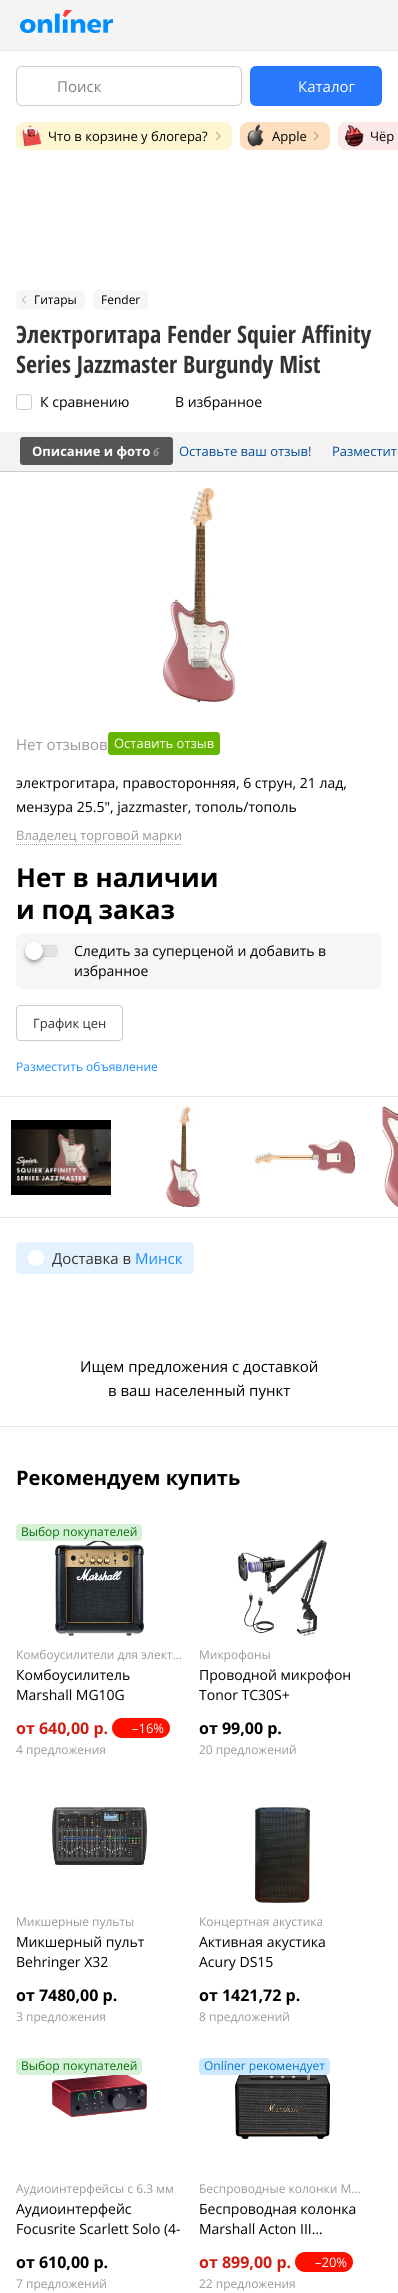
#include <cairo.h>
#include <math.h>
#include <stddef.h>

typedef struct { const char *family; double size; int italic, bold; unsigned color; } style_t;
static cairo_t *ctx;

static void ink(unsigned color) {
    cairo_set_source_rgb(ctx, (color >> 16) / 255.0, (color >> 8 & 255) / 255.0, (color & 255) / 255.0);
}

static void write(double x, double y, const char *s, const style_t *st) {
    cairo_select_font_face(ctx, st->family, st->italic ? CAIRO_FONT_SLANT_ITALIC : CAIRO_FONT_SLANT_NORMAL,
        st->bold ? CAIRO_FONT_WEIGHT_BOLD : CAIRO_FONT_WEIGHT_NORMAL);
    cairo_set_font_size(ctx, st->size);
    ink(st->color);
    cairo_move_to(ctx, x, y);
    cairo_show_text(ctx, s);
}

static void block(double x, double y, double w, double h, unsigned color) {
    ink(color);
    cairo_rectangle(ctx, x, y, w, h);
    cairo_fill(ctx);
}

static void round_path(double x, double y, double w, double h, double r) {
    cairo_new_sub_path(ctx);
    cairo_arc(ctx, x + w - r, y + h - r, r, 0, M_PI / 2);
    cairo_arc(ctx, x + r, y + h - r, r, M_PI / 2, M_PI);
    cairo_arc(ctx, x + r, y + r, r, M_PI, 1.5 * M_PI);
    cairo_arc(ctx, x + w - r, y + r, r, 1.5 * M_PI, 2 * M_PI);
    cairo_close_path(ctx);
}

static void blur_box(double x, double y, double w, double h, double r, double blur, double alpha) {
    cairo_push_group_with_content(ctx, CAIRO_CONTENT_ALPHA);
    cairo_set_operator(ctx, CAIRO_OPERATOR_SOURCE);
    for (int i = 15; i >= -15 && fmin(w, h) + blur * i / 3 > 0; i -= 2) {
        double e = blur * i / 6;
        cairo_set_source_rgba(ctx, 0, 0, 0, alpha * erfc((i - 1) / 8.5) / 2);
        round_path(x - e, y - e, w + 2 * e, h + 2 * e, fmax(0, fmin(r + e + blur * .6, fmin(w, h) / 2 + e)));
        cairo_fill(ctx);
    }
    cairo_pattern_t *soft = cairo_pop_group(ctx);
    cairo_mask(ctx, soft);
    cairo_pattern_destroy(soft);
}

static void paste(const char *path, double x, double y, double w, double h) {
    cairo_surface_t *image = cairo_image_surface_create_from_png(path);
    cairo_save(ctx);
    cairo_set_source_surface(ctx, image, x, y);
    cairo_rectangle(ctx, x, y, w, h);
    cairo_fill(ctx);
    cairo_restore(ctx);
    cairo_surface_destroy(image);
}

static const style_t s1 = {"Open Sans", 15, 0, 0, 0x808080};
static const style_t s2 = {"Open Sans", 15, 0, 0, 0xffffff};
static const style_t s3 = {"Open Sans", 13, 0, 0, 0x000000};
static const style_t s4 = {"Open Sans", 20, 0, 0, 0xc5c5c5};
static const style_t s5 = {"Open Sans", 12, 0, 0, 0x000000};
static const style_t s6 = {"Open Sans Condensed", 24, 0, 1, 0x333333};
static const style_t s7 = {"Open Sans", 14, 0, 0, 0x000000};
static const style_t s8 = {"Open Sans", 13, 0, 1, 0xffffff};
static const style_t s9 = {"Open Sans", 11, 1, 1, 0x999999};
static const style_t s10 = {"Open Sans", 13, 0, 0, 0x004d99};
static const style_t s11 = {"Open Sans", 15, 0, 0, 0x999999};
static const style_t s12 = {"Open Sans", 13, 0, 0, 0xffffff};
static const style_t s13 = {"Open Sans", 13, 0, 0, 0x999999};
static const style_t s14 = {"Open Sans", 26, 0, 1, 0x000000};
static const style_t s15 = {"Open Sans", 13, 0, 0, 0x333333};
static const style_t s16 = {"Open Sans", 12, 0, 0, 0x198cff};
static const style_t s17 = {"Open Sans", 15, 0, 0, 0x333333};
static const style_t s18 = {"Open Sans", 15, 0, 0, 0x198cff};
static const style_t s19 = {"Open Sans", 15, 0, 0, 0x000000};
static const style_t s20 = {"Open Sans", 20, 0, 1, 0x000000};
static const style_t s21 = {"Open Sans", 12, 0, 0, 0x04710a};
static const style_t s22 = {"Open Sans", 12, 0, 0, 0x999999};
static const style_t s23 = {"Open Sans", 16, 0, 1, 0xd01c10};
static const style_t s24 = {"Open Sans", 16, 0, 1, 0x000000};
static const style_t s25 = {"Open Sans", 12, 0, 0, 0x007aca};

int main(void) {
    cairo_surface_t *surface = cairo_image_surface_create(CAIRO_FORMAT_RGB24, 398, 2293);
    ctx = cairo_create(surface);
    cairo_font_options_t *options = cairo_font_options_create();
    cairo_font_options_set_hint_metrics(options, CAIRO_HINT_METRICS_OFF);
    cairo_font_options_set_hint_style(options, CAIRO_HINT_STYLE_NONE);
    cairo_set_font_options(ctx, options);
    cairo_set_miter_limit(ctx, 4);
    ink(0xffffff);
    cairo_paint(ctx);
    block(0, 0, 398, 50, 0xf4f4f4);
    block(0, 50, 398, 1, 0xe8e8e8);
    paste("pic1.png", 20, 10, 93, 23);
    round_path(16.5, 66.5, 225, 39, 5.5);
    ink(0xcccccc);
    cairo_set_line_width(ctx, 1);
    cairo_stroke(ctx);
    write(57, 92, "Поиск", &s1);
    ink(0x2979ff);
    round_path(250, 66, 132, 40, 6);
    cairo_fill(ctx);
    write(298, 92, "Каталог", &s2);
    ink(0xfef6d0);
    round_path(16, 122, 216, 28, 8);
    cairo_fill(ctx);
    paste("pic2.png", 216, 132, 5, 8);
    paste("pic3.png", 22, 125, 20, 22);
    write(48, 141, "Что в корзине у блогера?", &s3);
    ink(0xfee0c1);
    round_path(240, 122, 90, 28, 8);
    cairo_fill(ctx);
    paste("pic4.png", 314, 132, 5, 8);
    paste("pic5.png", 247, 124, 17, 23);
    write(272, 141, "Apple", &s3);
    ink(0xfbe9e9);
    cairo_new_path(ctx);
    cairo_move_to(ctx, 346, 122);
    cairo_line_to(ctx, 398, 122);
    cairo_line_to(ctx, 398, 150);
    cairo_line_to(ctx, 346, 150);
    cairo_curve_to(ctx, 341.5, 150, 338, 146.5, 338, 142);
    cairo_line_to(ctx, 338, 130);
    cairo_curve_to(ctx, 338, 125.5, 341.5, 122, 346, 122);
    cairo_close_path(ctx);
    cairo_fill(ctx);
    paste("pic6.png", 344, 125, 20, 22);
    write(370, 141, "Чёр", &s3);
    ink(0xf6f6f6);
    round_path(16, 290, 69, 20, 5);
    cairo_fill(ctx);
    write(21, 305, "‹", &s4);
    write(34, 304, "Гитары", &s5);
    ink(0xf6f6f6);
    round_path(93, 290, 55, 20, 5);
    cairo_fill(ctx);
    write(101, 304, "Fender", &s5);
    write(16, 343, "Электрогитара Fender Squier Affinity", &s6);
    write(16, 373, "Series Jazzmaster Burgundy Mist", &s6);
    round_path(16.5, 394.5, 15, 15, 2.5);
    ink(0xcccccc);
    cairo_stroke(ctx);
    write(40, 407, "К сравнению", &s7);
    write(175, 407, "В избранное", &s7);
    block(0, 432, 398, 39, 0xf3f3f3);
    block(0, 471, 398, 1, 0xcccccc);
    ink(0x555555);
    round_path(20, 437, 153, 28, 3);
    cairo_fill(ctx);
    write(32, 456, "Описание и фото", &s8);
    write(153, 456, "6", &s9);
    write(179, 456, "Оставьте ваш отзыв!", &s10);
    write(332, 456, "Разместит", &s10);
    block(0, 1096, 398, 1, 0xe7e7e7);
    paste("pic7.png", 163, 488, 72, 214);
    write(16, 750, "Нет отзывов", &s11);
    ink(0x66b500);
    round_path(108, 732, 112, 23, 3);
    cairo_fill(ctx);
    write(114, 748, "Оставить отзыв", &s12);
    write(16, 788, "электрогитара, правосторонняя, 6 струн, 21 лад,", &s7);
    write(16, 812, "мензура 25.5\", jazzmaster, тополь/тополь", &s7);
    write(16, 840, "Владелец торговой марки", &s13);
    cairo_new_path(ctx);
    cairo_move_to(ctx, 16, 844.5);
    cairo_line_to(ctx, 182, 844.5);
    cairo_set_dash(ctx, (double[]){1, 1}, 2, 0);
    cairo_stroke(ctx);
    write(16, 887, "Нет в наличии", &s14);
    write(16, 919, "и под заказ", &s14);
    ink(0xf6f6f6);
    round_path(16, 933, 366, 56, 7);
    cairo_fill(ctx);
    ink(0xe2e2e2);
    round_path(28, 945, 30, 12, 6);
    cairo_fill(ctx);
    cairo_rectangle(ctx, 28.5, 945.5, 29, 11);
    cairo_set_source_rgba(ctx, 0, 0, 0, 0.05);
    cairo_set_dash(ctx, NULL, 0, 0);
    cairo_stroke(ctx);
    ink(0x000000);
    blur_box(25, 945, 18, 18, 9, 1.5, 0.2);
    blur_box(25, 944, 18, 18, 9, 3, 0.1);
    blur_box(25, 943, 18, 18, 9, 0.5, 0.1);
    ink(0xffffff);
    cairo_arc(ctx, 34, 951, 9, 0, 2 * M_PI);
    cairo_fill(ctx);
    write(74, 956, "Следить за суперценой и добавить в", &s7);
    write(74, 976, "избранное", &s7);
    round_path(16.5, 1005.5, 106, 35, 3.5);
    ink(0xcccccc);
    cairo_stroke(ctx);
    write(33, 1028, "График цен", &s15);
    write(16, 1071, "Разместить объявление", &s16);
    paste("pic8.png", 11, 1120, 100, 75);
    paste("pic9.png", 166, 1107, 34, 100);
    paste("pic10.png", 255, 1140, 100, 34);
    paste("pic11.png", 382, 1107, 16, 100);
    block(0, 1217, 398, 1, 0xe7e7e7);
    block(0, 1426, 398, 1, 0xe7e7e7);
    ink(0xe4f2ff);
    round_path(16, 1242, 178, 32, 4);
    cairo_fill(ctx);
    ink(0xffffff);
    cairo_arc(ctx, 36, 1258, 8, 0, 2 * M_PI);
    cairo_fill(ctx);
    write(52, 1264, "Доставка в", &s17);
    write(135, 1264, "Минск", &s18);
    write(80, 1372, "Ищем предложения с доставкой", &s19);
    write(108, 1396, "в ваш населенный пункт", &s19);
    write(16, 1485, "Рекомендуем купить", &s20);
    paste("pic12.png", 55, 1540, 89, 96);
    ink(0xd6f1d7);
    round_path(16, 1524, 126, 17, 4);
    cairo_fill(ctx);
    write(21, 1536, "Выбор покупателей", &s21);
    write(16, 1659, "Комбоусилители для элект…", &s22);
    write(16, 1680, "Комбоусилитель", &s7);
    write(16, 1700, "Marshall MG10G", &s7);
    write(16, 1734, "от 640,00 р.", &s23);
    ink(0xfd1000);
    round_path(112, 1718, 58, 20, 10);
    cairo_fill(ctx);
    write(132, 1733, "–16%", &s12);
    write(16, 1754, "4 предложения", &s22);
    paste("pic13.png", 238, 1540, 89, 96);
    write(199, 1659, "Микрофоны", &s22);
    write(199, 1680, "Проводной микрофон", &s7);
    write(199, 1700, "Tonor TC30S+", &s7);
    write(199, 1734, "от 99,00 р.", &s24);
    write(199, 1754, "20 предложений", &s22);
    paste("pic14.png", 52, 1807, 95, 58);
    write(16, 1926, "Микшерные пульты", &s22);
    write(16, 1947, "Микшерный пульт", &s7);
    write(16, 1967, "Behringer X32", &s7);
    write(16, 2001, "от 7480,00 р.", &s24);
    write(16, 2021, "3 предложения", &s22);
    paste("pic15.png", 255, 1807, 55, 96);
    write(199, 1926, "Концертная акустика", &s22);
    write(199, 1947, "Активная акустика", &s7);
    write(199, 1967, "Acury DS15", &s7);
    write(199, 2001, "от 1421,72 р.", &s24);
    write(199, 2021, "8 предложений", &s22);
    paste("pic16.png", 52, 2074, 95, 43);
    ink(0xd6f1d7);
    round_path(16, 2058, 126, 17, 4);
    cairo_fill(ctx);
    write(21, 2070, "Выбор покупателей", &s21);
    write(16, 2193, "Аудиоинтерфейсы с 6.3 мм", &s22);
    write(16, 2214, "Аудиоинтерфейс", &s7);
    write(16, 2234, "Focusrite Scarlett Solo (4-", &s7);
    write(16, 2268, "от 610,00 р.", &s24);
    write(16, 2288, "7 предложений", &s22);
    paste("pic17.png", 235, 2074, 95, 65);
    ink(0xcce8fe);
    round_path(199, 2058, 131, 17, 4);
    cairo_fill(ctx);
    write(204, 2070, "Onlíner рекомендует", &s25);
    write(199, 2193, "Беспроводные колонки M…", &s22);
    write(199, 2214, "Беспроводная колонка", &s7);
    write(199, 2234, "Marshall Acton III…", &s7);
    write(199, 2268, "от 899,00 р.", &s23);
    ink(0xfd1000);
    round_path(295, 2252, 58, 20, 10);
    cairo_fill(ctx);
    write(315, 2267, "–20%", &s12);
    write(199, 2288, "22 предложения", &s22);
    cairo_surface_write_to_png(surface, "screenshot.png");
    cairo_font_options_destroy(options);
    cairo_destroy(ctx);
    cairo_surface_destroy(surface);
    return 0;
}
